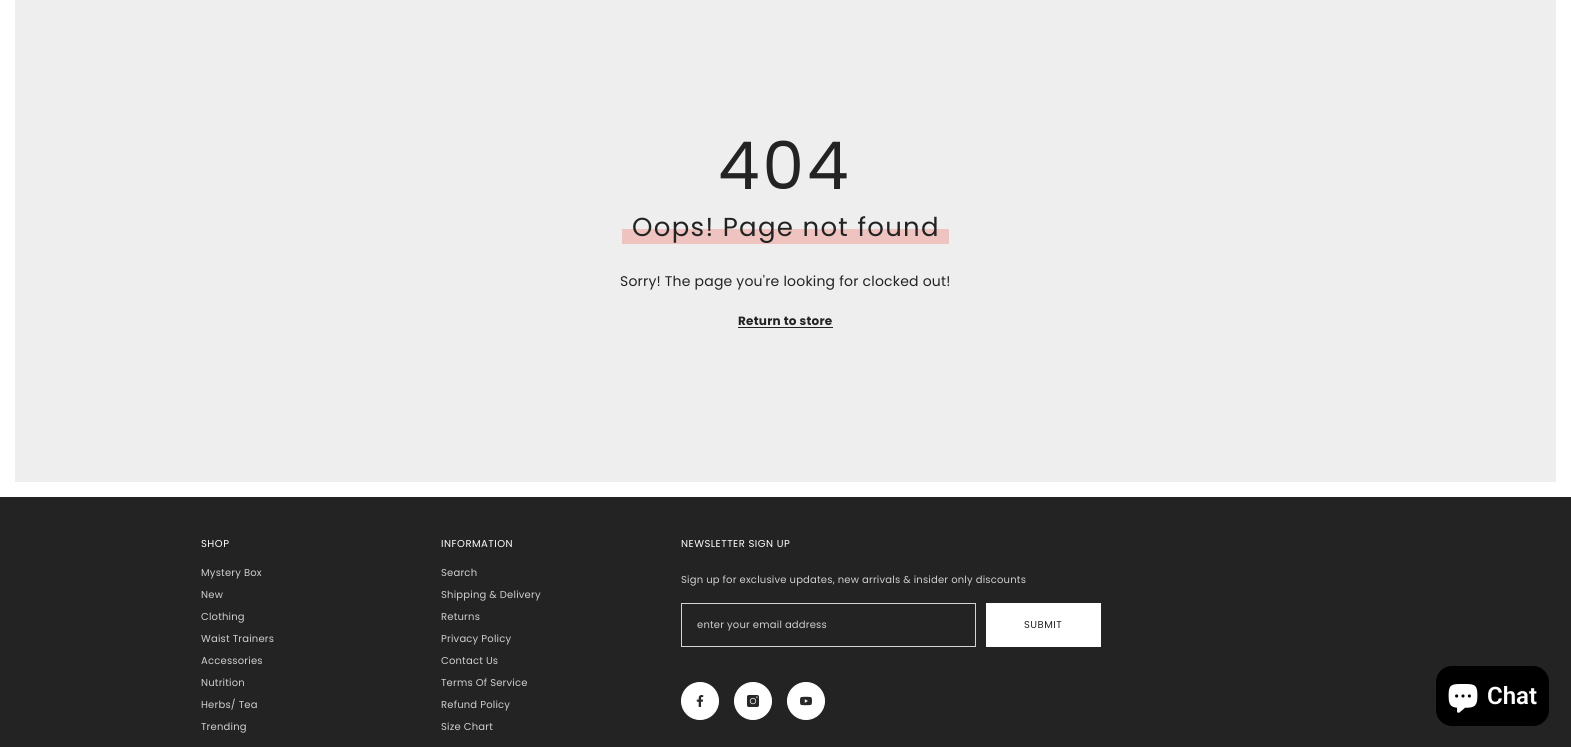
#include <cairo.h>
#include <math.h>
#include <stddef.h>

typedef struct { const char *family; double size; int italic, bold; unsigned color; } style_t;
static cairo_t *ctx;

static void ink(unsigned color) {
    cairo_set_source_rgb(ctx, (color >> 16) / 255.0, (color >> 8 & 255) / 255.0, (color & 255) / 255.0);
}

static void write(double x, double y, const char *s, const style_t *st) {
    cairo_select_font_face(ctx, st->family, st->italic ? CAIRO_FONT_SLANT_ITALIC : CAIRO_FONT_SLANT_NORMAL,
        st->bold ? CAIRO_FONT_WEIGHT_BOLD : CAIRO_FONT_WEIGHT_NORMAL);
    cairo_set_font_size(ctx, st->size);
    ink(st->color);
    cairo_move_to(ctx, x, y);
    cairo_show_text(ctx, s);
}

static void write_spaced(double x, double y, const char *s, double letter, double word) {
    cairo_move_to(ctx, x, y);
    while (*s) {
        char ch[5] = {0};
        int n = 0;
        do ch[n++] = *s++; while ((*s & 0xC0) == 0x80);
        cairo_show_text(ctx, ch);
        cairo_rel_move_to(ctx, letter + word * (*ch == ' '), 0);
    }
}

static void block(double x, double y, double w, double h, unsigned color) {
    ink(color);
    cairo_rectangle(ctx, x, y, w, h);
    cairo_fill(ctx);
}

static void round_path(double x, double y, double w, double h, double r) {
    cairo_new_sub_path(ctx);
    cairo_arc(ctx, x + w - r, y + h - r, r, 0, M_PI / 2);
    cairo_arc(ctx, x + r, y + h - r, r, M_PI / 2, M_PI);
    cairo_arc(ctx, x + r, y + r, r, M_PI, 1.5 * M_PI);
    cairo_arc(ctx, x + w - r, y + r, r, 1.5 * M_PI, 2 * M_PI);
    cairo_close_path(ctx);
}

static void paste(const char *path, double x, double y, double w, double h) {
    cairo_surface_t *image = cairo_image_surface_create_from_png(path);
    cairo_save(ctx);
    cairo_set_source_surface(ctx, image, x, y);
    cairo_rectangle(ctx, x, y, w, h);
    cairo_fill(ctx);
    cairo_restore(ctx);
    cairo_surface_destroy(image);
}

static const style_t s1 = {"Roboto SemiBold", 24, 0, 0, 0xffffff};

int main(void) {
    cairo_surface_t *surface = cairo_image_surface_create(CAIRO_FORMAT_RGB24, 1571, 747);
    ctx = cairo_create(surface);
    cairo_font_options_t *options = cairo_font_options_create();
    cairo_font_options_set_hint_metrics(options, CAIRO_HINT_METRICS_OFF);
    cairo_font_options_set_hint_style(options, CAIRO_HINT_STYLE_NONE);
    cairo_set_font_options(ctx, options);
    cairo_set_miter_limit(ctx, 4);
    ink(0xffffff);
    cairo_paint(ctx);
    block(15, 0, 1541, 482, 0xeeeeee);
    cairo_select_font_face(ctx, "Poppins", CAIRO_FONT_SLANT_NORMAL, CAIRO_FONT_WEIGHT_NORMAL);
    cairo_set_font_size(ctx, 66);
    ink(0x232323);
    write_spaced(718, 189, "404", 3, 0);
    block(622, 229, 327, 15, 0xefc3c0);
    cairo_set_font_size(ctx, 26);
    ink(0x232323);
    write_spaced(632, 236, "Oops! Page not found", 1.3, 0);
    cairo_set_font_size(ctx, 14);
    write_spaced(620, 286, "Sorry! The page you're looking for clocked out!", 0.2, 0);
    cairo_select_font_face(ctx, "Poppins", CAIRO_FONT_SLANT_NORMAL, CAIRO_FONT_WEIGHT_BOLD);
    cairo_set_font_size(ctx, 12);
    write_spaced(738, 325, "Return to store", 0.25, 0);
    block(738, 327, 95, 1, 0x232323);
    block(0, 497, 1571, 250, 0x232323);
    cairo_select_font_face(ctx, "Poppins", CAIRO_FONT_SLANT_NORMAL, CAIRO_FONT_WEIGHT_NORMAL);
    cairo_set_font_size(ctx, 10);
    ink(0xffffff);
    write_spaced(201, 547, "SHOP", 0.5, 0);
    ink(0xcfcfcf);
    write_spaced(201, 576, "Mystery Box", 0.2, 0);
    write_spaced(201, 598, "New", 0.2, 0);
    write_spaced(201, 620, "Clothing", 0.2, 0);
    write_spaced(201, 642, "Waist Trainers", 0.2, 0);
    write_spaced(201, 664, "Accessories", 0.2, 0);
    write_spaced(201, 686, "Nutrition", 0.2, 0);
    write_spaced(201, 708, "Herbs/ Tea", 0.2, 0);
    write_spaced(201, 730, "Trending", 0.2, 0);
    ink(0xffffff);
    write_spaced(441, 547, "INFORMATION", 0.5, 0);
    ink(0xcfcfcf);
    write_spaced(441, 576, "Search", 0.2, 0);
    write_spaced(441, 598, "Shipping & Delivery", 0.2, 0);
    write_spaced(441, 620, "Returns", 0.2, 0);
    write_spaced(441, 642, "Privacy Policy", 0.2, 0);
    write_spaced(441, 664, "Contact Us", 0.2, 0);
    write_spaced(441, 686, "Terms Of Service", 0.2, 0);
    write_spaced(441, 708, "Refund Policy", 0.2, 0);
    write_spaced(441, 730, "Size Chart", 0.2, 0);
    ink(0xffffff);
    write_spaced(681, 547, "NEWSLETTER SIGN UP", 0.5, 0);
    ink(0xcfcfcf);
    write_spaced(681, 583, "Sign up for exclusive updates, new arrivals & insider only discounts", 0.2, 0);
    cairo_rectangle(ctx, 681.5, 603.5, 294, 43);
    ink(0xd3d3d3);
    cairo_set_line_width(ctx, 1);
    cairo_stroke(ctx);
    ink(0xcfcfcf);
    write_spaced(697, 628, "enter your email address", 0.2, 0);
    block(986, 603, 115, 44, 0xffffff);
    ink(0x232323);
    write_spaced(1024, 628, "SUBMIT", 0.5, 0);
    ink(0xffffff);
    cairo_new_path(ctx);
    cairo_arc(ctx, 700, 701, 18.5, 0, 2 * M_PI);
    cairo_fill_preserve(ctx);
    cairo_stroke(ctx);
    paste("pic1.png", 696, 695, 8, 12);
    cairo_arc(ctx, 753, 701, 18.5, 0, 2 * M_PI);
    cairo_fill_preserve(ctx);
    cairo_stroke(ctx);
    paste("pic2.png", 747, 695, 12, 12);
    cairo_arc(ctx, 806, 701, 18.5, 0, 2 * M_PI);
    cairo_fill_preserve(ctx);
    cairo_stroke(ctx);
    paste("pic3.png", 800, 696, 12, 10);
    ink(0x000000);
    round_path(1436, 666, 113, 60, 16);
    cairo_fill(ctx);
    paste("pic4.png", 1448, 684, 30, 29);
    write(1487, 704, "Chat", &s1);
    cairo_surface_write_to_png(surface, "screenshot.png");
    cairo_font_options_destroy(options);
    cairo_destroy(ctx);
    cairo_surface_destroy(surface);
    return 0;
}
